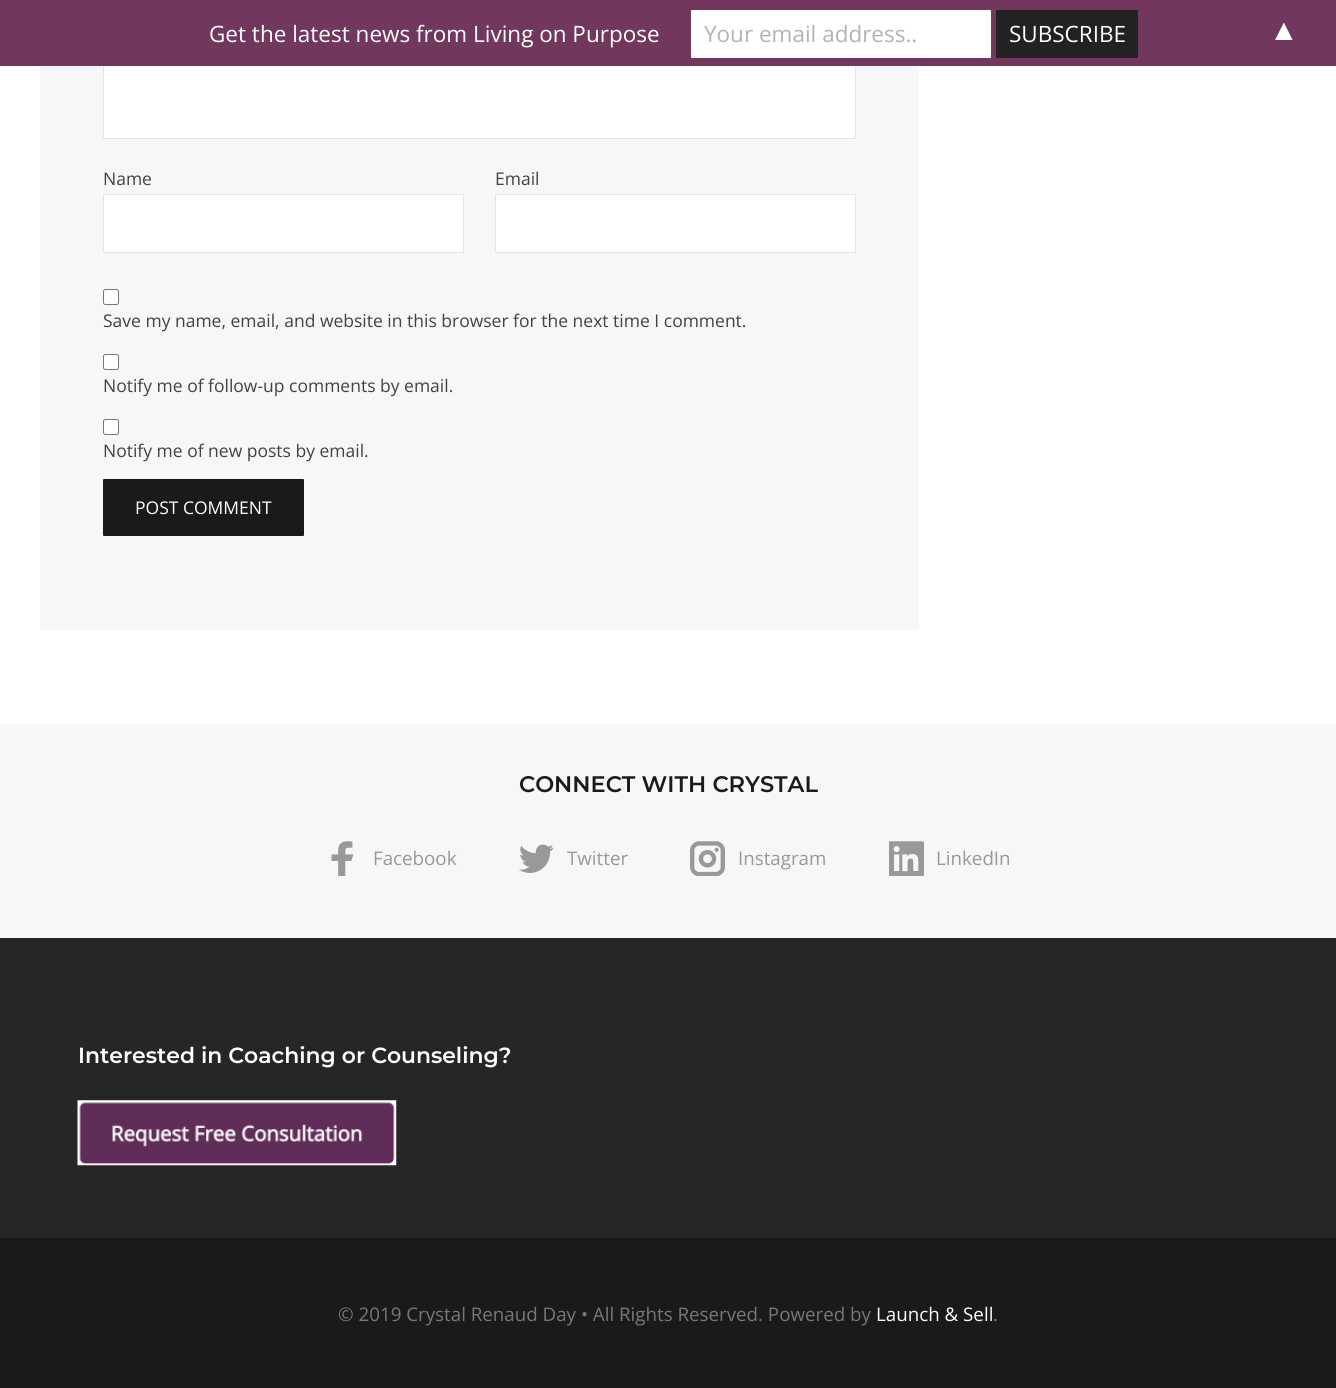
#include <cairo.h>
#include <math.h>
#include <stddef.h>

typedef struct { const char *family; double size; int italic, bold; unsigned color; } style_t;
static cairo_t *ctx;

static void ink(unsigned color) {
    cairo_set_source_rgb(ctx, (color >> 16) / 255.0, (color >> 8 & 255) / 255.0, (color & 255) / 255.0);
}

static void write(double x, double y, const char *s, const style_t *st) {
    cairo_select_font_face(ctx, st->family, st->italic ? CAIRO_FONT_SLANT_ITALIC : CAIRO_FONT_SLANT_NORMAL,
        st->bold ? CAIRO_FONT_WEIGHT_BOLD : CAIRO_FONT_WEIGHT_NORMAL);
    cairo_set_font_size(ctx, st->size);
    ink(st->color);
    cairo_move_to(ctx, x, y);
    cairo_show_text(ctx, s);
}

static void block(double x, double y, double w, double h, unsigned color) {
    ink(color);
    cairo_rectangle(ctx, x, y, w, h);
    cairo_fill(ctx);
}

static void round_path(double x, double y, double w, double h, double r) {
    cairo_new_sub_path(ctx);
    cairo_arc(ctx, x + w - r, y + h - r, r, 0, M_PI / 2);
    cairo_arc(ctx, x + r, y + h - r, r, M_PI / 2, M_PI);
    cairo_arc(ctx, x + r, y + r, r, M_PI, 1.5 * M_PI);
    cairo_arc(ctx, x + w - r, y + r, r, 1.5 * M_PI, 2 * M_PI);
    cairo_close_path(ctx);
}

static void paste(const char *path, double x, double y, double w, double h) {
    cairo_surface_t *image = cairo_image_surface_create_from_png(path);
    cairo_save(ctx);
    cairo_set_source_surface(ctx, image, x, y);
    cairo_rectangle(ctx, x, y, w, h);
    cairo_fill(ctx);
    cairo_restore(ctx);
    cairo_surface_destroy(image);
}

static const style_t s1 = {"Open Sans", 22.5, 0, 0, 0xffffff};
static const style_t s2 = {"Open Sans", 22.5, 0, 0, 0xb3b3b3};
static const style_t s3 = {"Liberation Sans", 30, 0, 0, 0xffffff};
static const style_t s4 = {"Open Sans", 17.5, 0, 0, 0x424242};
static const style_t s5 = {"Open Sans", 17.5, 0, 0, 0xffffff};
static const style_t s6 = {"Montserrat SemiBold", 22.5, 0, 0, 0x1a1a1a};
static const style_t s7 = {"Open Sans", 18.75, 0, 0, 0x999999};
static const style_t s8 = {"Montserrat SemiBold", 21.9, 0, 0, 0xffffff};
static const style_t s9 = {"Open Sans", 18.75, 0, 0, 0x777777};
static const style_t s10 = {"Open Sans", 18.75, 0, 0, 0xffffff};

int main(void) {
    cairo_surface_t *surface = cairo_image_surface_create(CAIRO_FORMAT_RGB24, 1336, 1388);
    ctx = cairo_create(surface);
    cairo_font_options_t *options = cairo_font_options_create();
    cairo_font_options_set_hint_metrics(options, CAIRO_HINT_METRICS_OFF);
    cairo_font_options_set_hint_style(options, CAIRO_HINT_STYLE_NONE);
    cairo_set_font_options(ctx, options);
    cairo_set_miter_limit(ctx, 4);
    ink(0xffffff);
    cairo_paint(ctx);
    block(40, 66, 879, 564, 0xf5f7f8);
    ink(0xffffff);
    round_path(103.5, -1.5, 752, 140, 0.5);
    cairo_fill_preserve(ctx);
    ink(0xe5e5e5);
    cairo_set_line_width(ctx, 1);
    cairo_stroke(ctx);
    block(0, 0, 1336, 66, 0x71375c);
    write(209, 42, "Get the latest news from Living on Purpose", &s1);
    round_path(691.5, 10.5, 299, 47, 0.5);
    cairo_fill_preserve(ctx);
    cairo_stroke(ctx);
    write(704, 42, "Your email address..", &s2);
    ink(0x222222);
    round_path(996.5, 10.5, 141, 47, 0.5);
    cairo_fill_preserve(ctx);
    cairo_stroke(ctx);
    write(1009, 42, "SUBSCRIBE", &s1);
    write(1269, 40, "▲", &s3);
    write(103, 185, "Name", &s4);
    ink(0xffffff);
    round_path(103.5, 194.5, 360, 58, 0.5);
    cairo_fill_preserve(ctx);
    ink(0xe5e5e5);
    cairo_stroke(ctx);
    write(495, 185, "Email", &s4);
    ink(0xffffff);
    round_path(495.5, 194.5, 360, 58, 0.5);
    cairo_fill_preserve(ctx);
    ink(0xe5e5e5);
    cairo_stroke(ctx);
    ink(0xffffff);
    round_path(103.5, 289.5, 15, 15, 2);
    cairo_fill_preserve(ctx);
    ink(0x767676);
    cairo_stroke(ctx);
    write(103, 327, "Save my name, email, and website in this browser for the next time I comment.", &s4);
    ink(0xffffff);
    round_path(103.5, 354.5, 15, 15, 2);
    cairo_fill_preserve(ctx);
    ink(0x767676);
    cairo_stroke(ctx);
    write(103, 392, "Notify me of follow-up comments by email.", &s4);
    ink(0xffffff);
    round_path(103.5, 419.5, 15, 15, 2);
    cairo_fill_preserve(ctx);
    ink(0x767676);
    cairo_stroke(ctx);
    write(103, 457, "Notify me of new posts by email.", &s4);
    ink(0x1a1a1a);
    round_path(103.5, 479.5, 200, 56, 0.5);
    cairo_fill_preserve(ctx);
    cairo_stroke(ctx);
    write(135, 514, "POST COMMENT", &s5);
    block(0, 724, 1336, 214, 0xf5f7f8);
    write(519, 792, "CONNECT WITH CRYSTAL", &s6);
    paste("pic1.png", 331, 841, 23, 35);
    write(373, 865, "Facebook", &s7);
    paste("pic2.png", 519, 844, 35, 29);
    write(567, 865, "Twitter", &s7);
    paste("pic3.png", 690, 841, 35, 35);
    write(738, 865, "Instagram", &s7);
    paste("pic4.png", 889, 841, 35, 35);
    write(936, 865, "LinkedIn", &s7);
    block(0, 938, 1336, 300, 0x262626);
    write(78, 1063, "Interested in Coaching or Counseling?", &s8);
    paste("pic5.png", 77, 1100, 320, 66);
    block(0, 1238, 1336, 150, 0x1a1a1a);
    write(338, 1321, "© 2019 Crystal Renaud Day • All Rights Reserved. Powered by", &s9);
    write(876, 1321, "Launch & Sell", &s10);
    write(993, 1321, ".", &s9);
    cairo_surface_write_to_png(surface, "screenshot.png");
    cairo_font_options_destroy(options);
    cairo_destroy(ctx);
    cairo_surface_destroy(surface);
    return 0;
}
